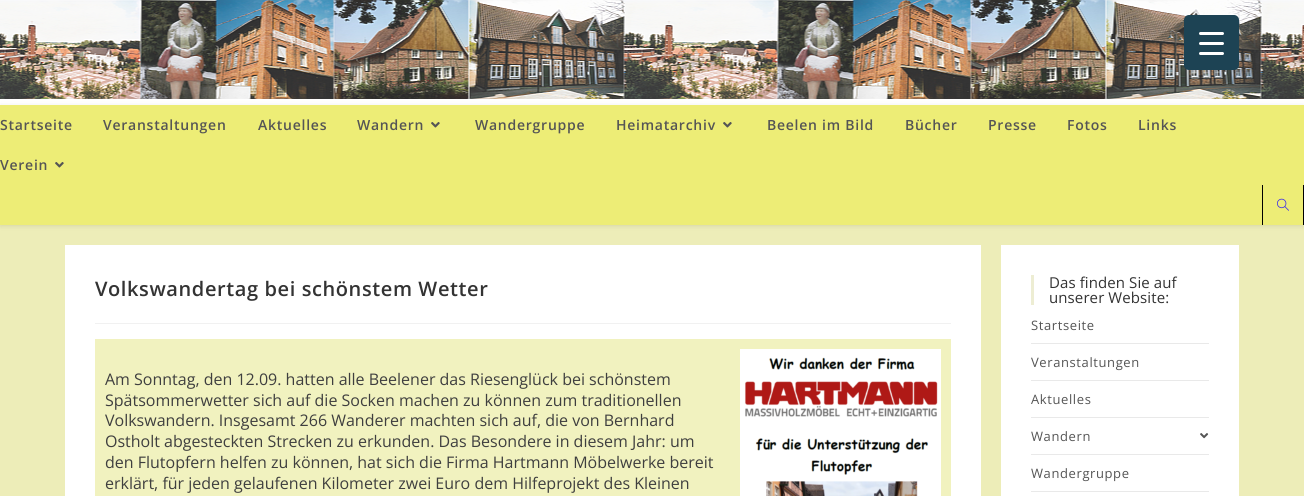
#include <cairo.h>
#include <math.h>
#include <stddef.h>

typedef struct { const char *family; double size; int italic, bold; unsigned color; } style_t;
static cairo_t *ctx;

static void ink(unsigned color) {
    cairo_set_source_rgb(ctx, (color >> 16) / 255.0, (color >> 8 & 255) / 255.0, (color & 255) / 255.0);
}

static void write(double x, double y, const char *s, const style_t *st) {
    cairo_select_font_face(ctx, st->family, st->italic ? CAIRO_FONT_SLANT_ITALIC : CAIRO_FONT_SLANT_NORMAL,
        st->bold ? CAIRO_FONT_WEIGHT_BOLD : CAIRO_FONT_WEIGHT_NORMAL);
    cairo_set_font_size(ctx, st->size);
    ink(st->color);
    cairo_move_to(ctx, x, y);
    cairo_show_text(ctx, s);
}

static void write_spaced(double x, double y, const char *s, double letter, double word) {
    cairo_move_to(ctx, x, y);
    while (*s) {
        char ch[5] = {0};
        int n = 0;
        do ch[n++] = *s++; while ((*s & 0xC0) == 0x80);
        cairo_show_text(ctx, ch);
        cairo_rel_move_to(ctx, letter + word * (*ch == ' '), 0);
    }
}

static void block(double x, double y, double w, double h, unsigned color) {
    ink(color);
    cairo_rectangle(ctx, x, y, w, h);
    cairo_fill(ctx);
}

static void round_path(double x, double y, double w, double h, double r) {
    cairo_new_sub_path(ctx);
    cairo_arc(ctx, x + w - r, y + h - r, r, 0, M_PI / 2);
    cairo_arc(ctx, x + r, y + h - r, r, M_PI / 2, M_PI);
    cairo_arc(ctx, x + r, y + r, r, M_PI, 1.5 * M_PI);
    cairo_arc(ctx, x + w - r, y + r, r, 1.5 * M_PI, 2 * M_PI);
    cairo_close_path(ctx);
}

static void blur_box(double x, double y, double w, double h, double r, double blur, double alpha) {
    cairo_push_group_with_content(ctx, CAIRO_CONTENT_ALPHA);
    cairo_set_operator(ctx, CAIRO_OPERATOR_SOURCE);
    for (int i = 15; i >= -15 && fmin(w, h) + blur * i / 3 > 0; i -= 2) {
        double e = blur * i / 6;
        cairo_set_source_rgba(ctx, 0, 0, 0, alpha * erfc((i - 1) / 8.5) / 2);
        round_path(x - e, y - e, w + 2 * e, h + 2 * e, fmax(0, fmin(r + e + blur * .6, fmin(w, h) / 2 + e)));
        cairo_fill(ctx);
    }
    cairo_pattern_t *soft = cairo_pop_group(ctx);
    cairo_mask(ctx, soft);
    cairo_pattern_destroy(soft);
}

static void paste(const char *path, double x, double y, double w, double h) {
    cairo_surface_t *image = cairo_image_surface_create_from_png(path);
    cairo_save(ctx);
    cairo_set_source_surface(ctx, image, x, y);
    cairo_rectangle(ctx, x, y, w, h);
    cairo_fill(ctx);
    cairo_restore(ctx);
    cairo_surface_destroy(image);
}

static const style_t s1 = {"Open Sans", 16, 0, 0, 0x3f3f3f};

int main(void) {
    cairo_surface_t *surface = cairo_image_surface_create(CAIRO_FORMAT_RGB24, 1304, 496);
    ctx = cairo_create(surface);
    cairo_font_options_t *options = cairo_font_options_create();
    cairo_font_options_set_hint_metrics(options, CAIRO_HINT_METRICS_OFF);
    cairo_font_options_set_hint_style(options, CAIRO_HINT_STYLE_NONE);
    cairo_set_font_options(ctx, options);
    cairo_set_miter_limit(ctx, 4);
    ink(0xededb8);
    cairo_paint(ctx);
    paste("pic1.png", 0, 0, 1304, 99);
    ink(0x1d4354);
    round_path(1184, 15, 55, 55, 5);
    cairo_fill(ctx);
    ink(0xffffff);
    round_path(1199, 42, 25, 3, 1.5);
    cairo_fill(ctx);
    round_path(1199, 32, 25, 3, 1.5);
    cairo_fill(ctx);
    round_path(1199, 52, 25, 3, 1.5);
    cairo_fill(ctx);
    block(0, 99, 1304, 6, 0xffffff);
    ink(0x000000);
    blur_box(0, 106, 1304, 120, 0, 2.5, 0.1);
    block(0, 105, 1304, 120, 0xeded76);
    cairo_select_font_face(ctx, "Open Sans SemiBold", CAIRO_FONT_SLANT_NORMAL, CAIRO_FONT_WEIGHT_NORMAL);
    cairo_set_font_size(ctx, 14);
    ink(0x555555);
    write_spaced(0, 130, "Startseite", 0.75, 0);
    write_spaced(103, 130, "Veranstaltungen", 0.75, 0);
    write_spaced(258, 130, "Aktuelles", 0.75, 0);
    write_spaced(357, 130, "Wandern", 0.75, 0);
    paste("pic2.png", 431, 122, 9, 6);
    write_spaced(475, 130, "Wandergruppe", 0.75, 0);
    write_spaced(616, 130, "Heimatarchiv", 0.75, 0);
    paste("pic2.png", 723, 122, 9, 6);
    write_spaced(767, 130, "Beelen im Bild", 0.75, 0);
    write_spaced(905, 130, "Bücher", 0.75, 0);
    write_spaced(988, 130, "Presse", 0.75, 0);
    write_spaced(1067, 130, "Fotos", 0.75, 0);
    write_spaced(1138, 130, "Links", 0.75, 0);
    write_spaced(0, 170, "Verein", 0.75, 0);
    paste("pic2.png", 55, 162, 9, 6);
    block(1303, 185, 1, 40, 0x000000);
    block(1262, 185, 1, 40, 0x000000);
    paste("pic3.png", 1277, 198, 12, 13);
    block(65, 245, 916, 251, 0xffffff);
    block(95, 323, 856, 1, 0xf1f1f1);
    cairo_set_font_size(ctx, 20);
    ink(0x333333);
    write_spaced(95, 296, "Volkswandertag bei schönstem Wetter", 0.6, 0);
    block(95, 339, 856, 157, 0xf1f2bf);
    write(105, 385, "Am Sonntag, den 12.09. hatten alle Beelener das Riesenglück bei schönstem", &s1);
    write(105, 406, "Spätsommerwetter sich auf die Socken machen zu können zum traditionellen", &s1);
    write(105, 426, "Volkswandern. Insgesamt 266 Wanderer machten sich auf, die von Bernhard", &s1);
    write(105, 447, "Ostholt abgesteckten Strecken zu erkunden. Das Besondere in diesem Jahr: um", &s1);
    write(105, 468, "den Flutopfern helfen zu können, hat sich die Firma Hartmann Möbelwerke bereit", &s1);
    write(105, 489, "erklärt, für jeden gelaufenen Kilometer zwei Euro dem Hilfeprojekt des Kleinen", &s1);
    paste("pic4.png", 740, 349, 201, 147);
    block(1001, 245, 238, 251, 0xffffff);
    block(1031, 275, 3, 30, 0xededd3);
    cairo_set_font_size(ctx, 15);
    ink(0x333333);
    write_spaced(1049, 288, "Das finden Sie auf", 0.1, 0);
    write_spaced(1049, 303, "unserer Website:", 0.1, 0);
    block(1031, 343, 178, 1, 0xe9e9e9);
    cairo_set_font_size(ctx, 13);
    ink(0x555555);
    write_spaced(1031, 330, "Startseite", 0.6, 0);
    block(1031, 380, 178, 1, 0xe9e9e9);
    ink(0x555555);
    write_spaced(1031, 367, "Veranstaltungen", 0.6, 0);
    block(1031, 417, 178, 1, 0xe9e9e9);
    ink(0x555555);
    write_spaced(1031, 404, "Aktuelles", 0.6, 0);
    block(1031, 454, 178, 1, 0xe9e9e9);
    ink(0x555555);
    write_spaced(1031, 441, "Wandern", 0.6, 0);
    paste("pic5.png", 1200, 433, 9, 6);
    block(1031, 491, 178, 1, 0xe9e9e9);
    ink(0x555555);
    write_spaced(1031, 478, "Wandergruppe", 0.6, 0);
    cairo_surface_write_to_png(surface, "screenshot.png");
    cairo_font_options_destroy(options);
    cairo_destroy(ctx);
    cairo_surface_destroy(surface);
    return 0;
}
